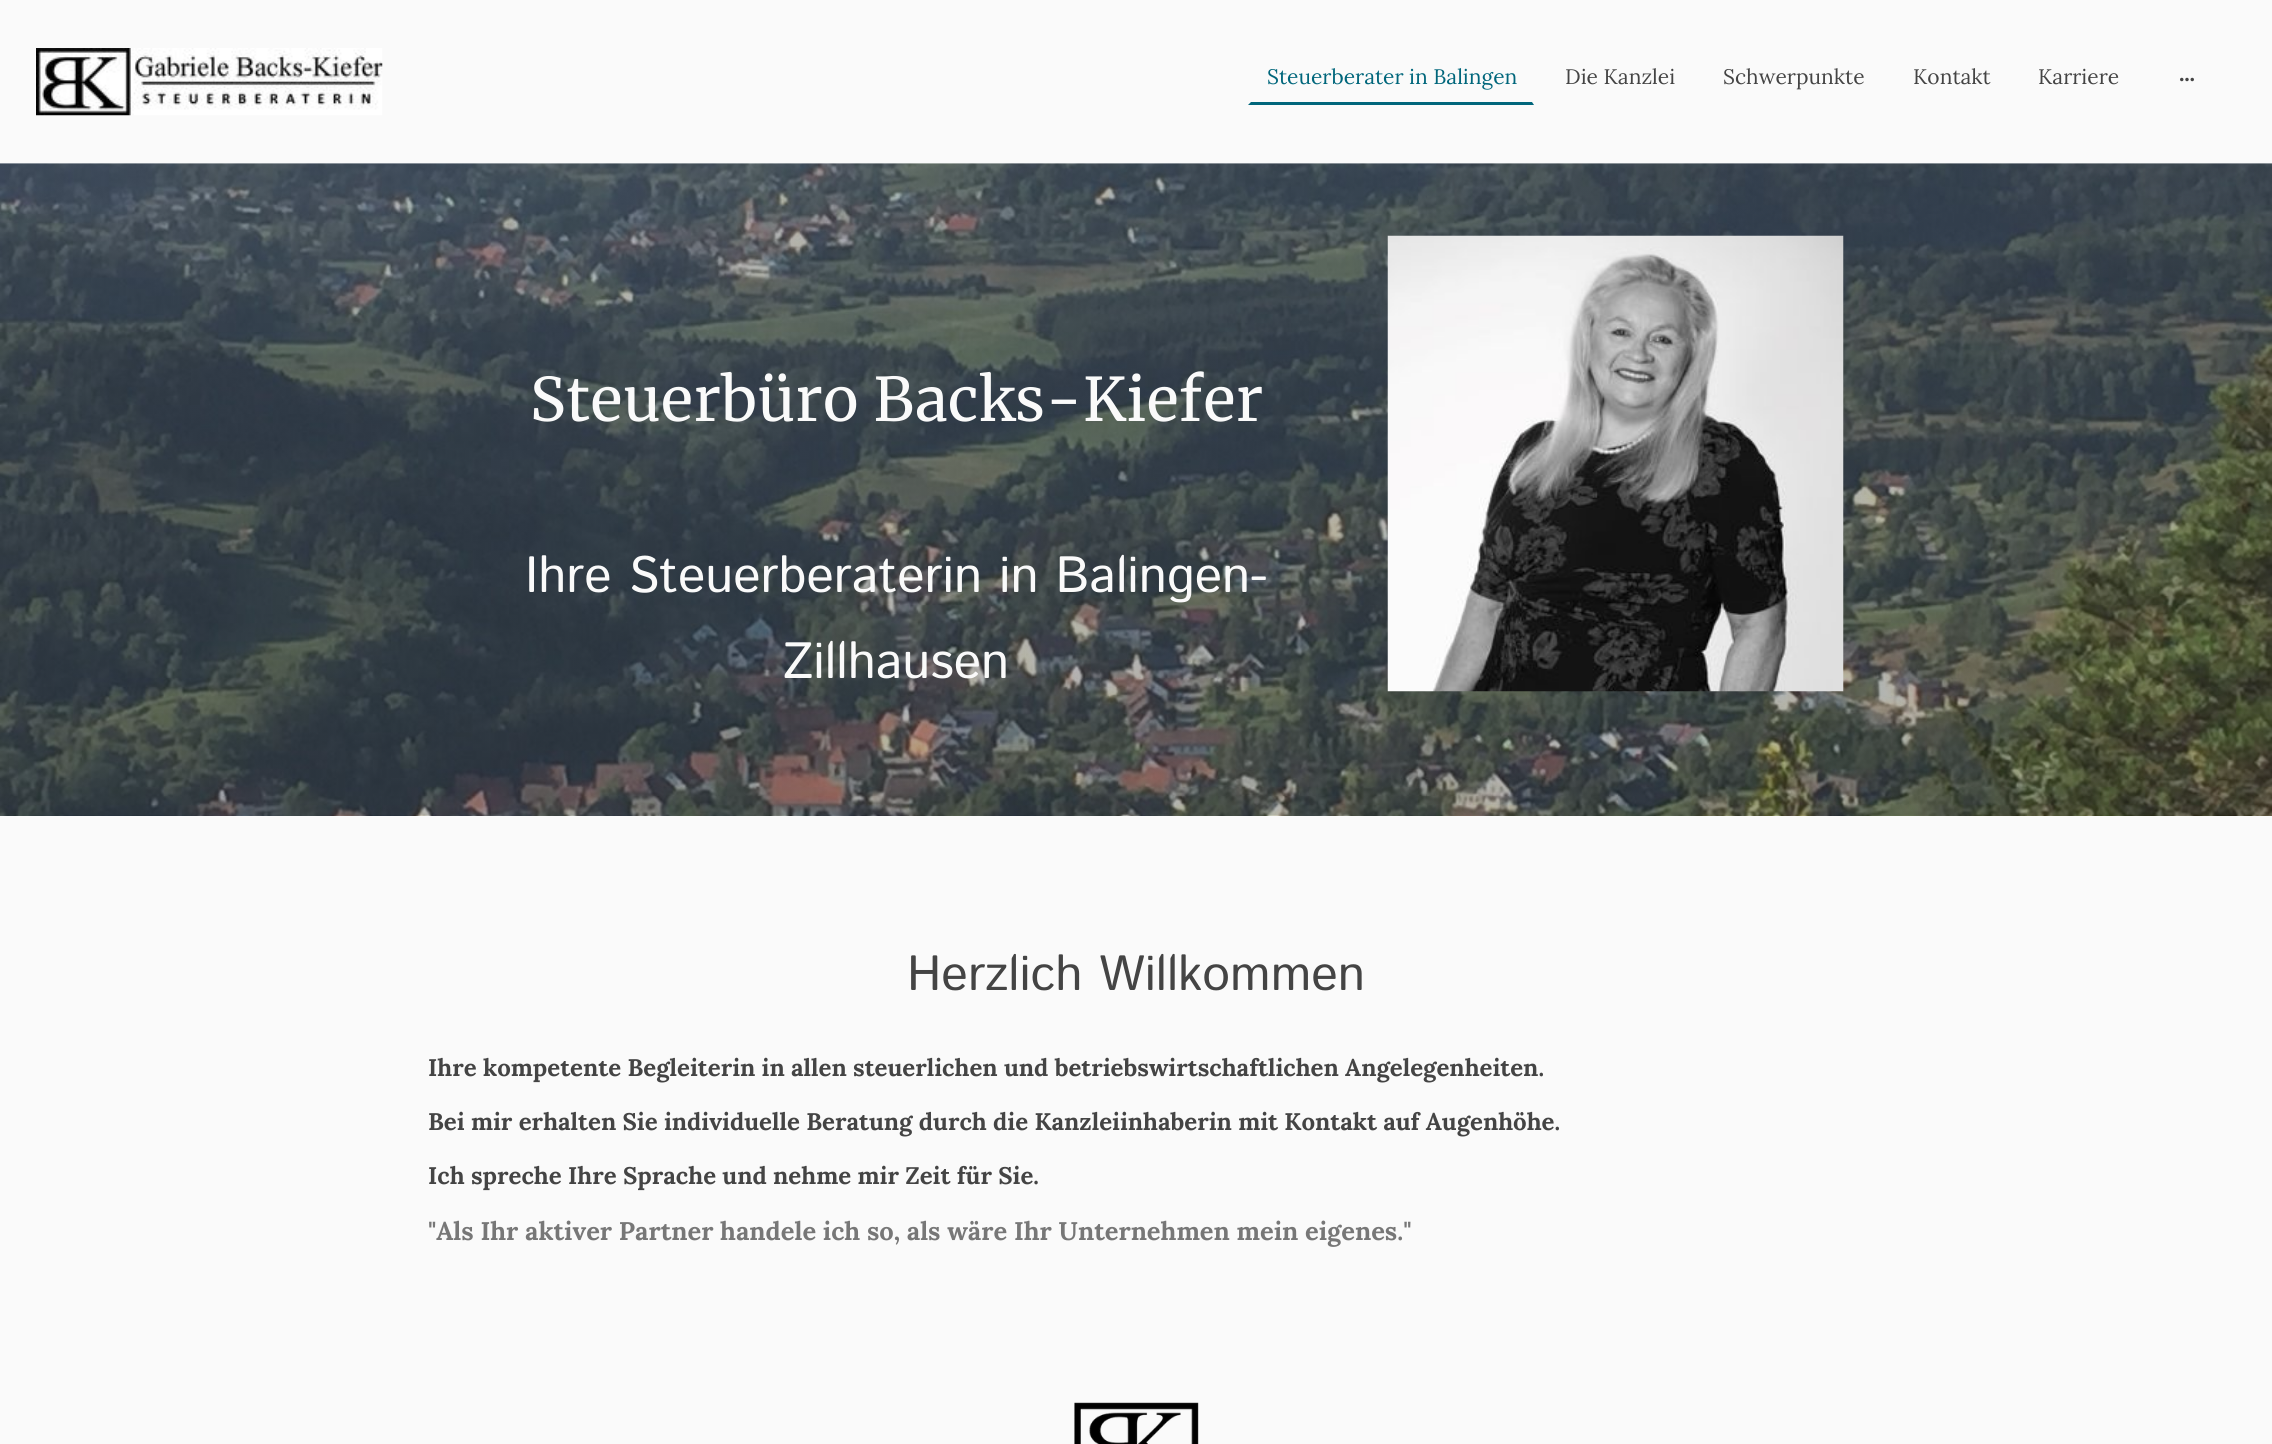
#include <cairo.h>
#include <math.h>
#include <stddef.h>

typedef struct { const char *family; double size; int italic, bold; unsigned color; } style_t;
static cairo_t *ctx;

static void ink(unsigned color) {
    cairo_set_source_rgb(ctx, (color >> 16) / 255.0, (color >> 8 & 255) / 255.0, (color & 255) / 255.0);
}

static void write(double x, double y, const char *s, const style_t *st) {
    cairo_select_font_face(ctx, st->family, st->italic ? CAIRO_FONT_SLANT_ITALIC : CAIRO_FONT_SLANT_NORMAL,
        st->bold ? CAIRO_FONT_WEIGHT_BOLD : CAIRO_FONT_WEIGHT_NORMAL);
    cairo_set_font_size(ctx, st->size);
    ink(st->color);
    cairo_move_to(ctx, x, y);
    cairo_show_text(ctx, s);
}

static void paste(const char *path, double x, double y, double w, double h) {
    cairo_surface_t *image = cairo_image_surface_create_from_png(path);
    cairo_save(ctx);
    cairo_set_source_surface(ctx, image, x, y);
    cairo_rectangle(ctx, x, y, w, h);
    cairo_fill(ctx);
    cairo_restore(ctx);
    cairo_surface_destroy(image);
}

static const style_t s1 = {"Lora", 21, 0, 0, 0x00667b};
static const style_t s2 = {"Lora", 21, 0, 0, 0x444444};
static const style_t s3 = {"Merriweather", 60, 0, 0, 0xfafafa};
static const style_t s4 = {"Istok Web", 51, 0, 0, 0xfafafa};
static const style_t s5 = {"Istok Web", 49.5, 0, 0, 0x444444};
static const style_t s6 = {"Lora", 24, 0, 1, 0x444444};
static const style_t s7 = {"Lora", 25.5, 0, 1, 0x777777};

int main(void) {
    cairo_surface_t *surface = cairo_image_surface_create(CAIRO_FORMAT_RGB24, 2272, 1444);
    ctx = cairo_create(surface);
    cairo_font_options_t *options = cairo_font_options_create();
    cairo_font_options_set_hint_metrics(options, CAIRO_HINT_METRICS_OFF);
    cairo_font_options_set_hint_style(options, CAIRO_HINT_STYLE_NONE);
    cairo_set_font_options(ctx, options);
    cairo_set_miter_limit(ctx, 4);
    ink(0xfafafa);
    cairo_paint(ctx);
    paste("pic1.png", 36, 48, 347, 68);
    ink(0x00667b);
    cairo_new_path(ctx);
    cairo_move_to(ctx, 1534, 105);
    cairo_line_to(ctx, 1248, 105);
    cairo_line_to(ctx, 1251, 102);
    cairo_line_to(ctx, 1532, 102);
    cairo_close_path(ctx);
    cairo_fill(ctx);
    write(1267, 84, "Steuerberater in Balingen", &s1);
    write(1565, 84, "Die Kanzlei", &s2);
    write(1723, 84, "Schwerpunkte", &s2);
    write(1913, 84, "Kontakt", &s2);
    write(2038, 84, "Karriere", &s2);
    paste("pic2.png", 2180, 77, 14, 5);
    paste("pic3.png", 0, 163, 2272, 653);
    write(530, 421, "Steuerbüro Backs-Kiefer", &s3);
    write(525, 592, "Ihre Steuerberaterin in Balingen-", &s4);
    write(783, 678, "Zillhausen", &s4);
    paste("pic4.png", 1387, 235, 457, 457);
    write(907, 990, "Herzlich Willkommen", &s5);
    write(428, 1076, "Ihre kompetente Begleiterin in allen steuerlichen und betriebswirtschaftlichen Angelegenheiten.", &s6);
    write(428, 1130, "Bei mir erhalten Sie individuelle Beratung durch die Kanzleiinhaberin mit Kontakt auf Augenhöhe.", &s6);
    write(428, 1184, "Ich spreche Ihre Sprache und nehme mir Zeit für Sie.", &s6);
    write(428, 1240, "\"Als Ihr aktiver Partner handele ich so, als wäre Ihr Unternehmen mein eigenes.\"", &s7);
    paste("pic5.png", 1074, 1402, 125, 42);
    cairo_surface_write_to_png(surface, "screenshot.png");
    cairo_font_options_destroy(options);
    cairo_destroy(ctx);
    cairo_surface_destroy(surface);
    return 0;
}
